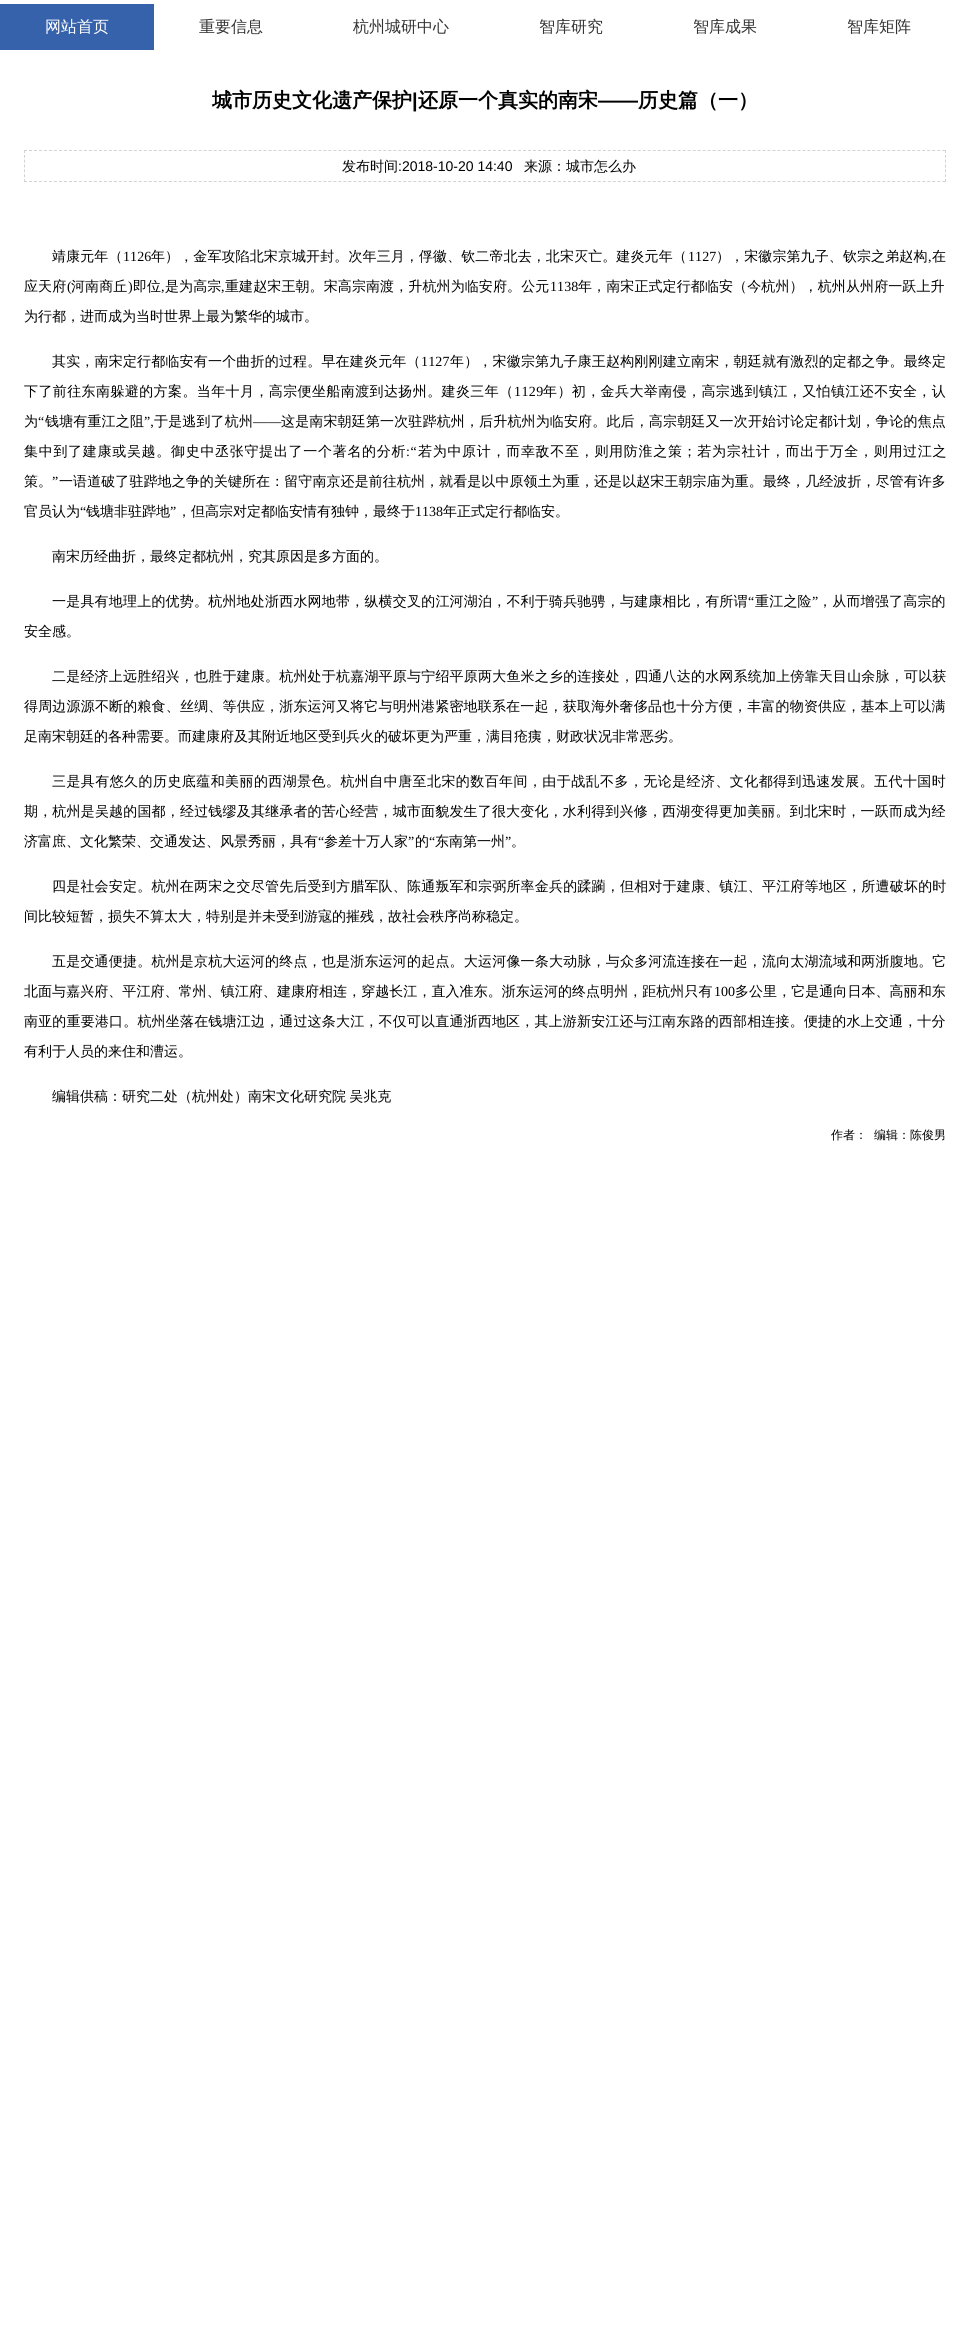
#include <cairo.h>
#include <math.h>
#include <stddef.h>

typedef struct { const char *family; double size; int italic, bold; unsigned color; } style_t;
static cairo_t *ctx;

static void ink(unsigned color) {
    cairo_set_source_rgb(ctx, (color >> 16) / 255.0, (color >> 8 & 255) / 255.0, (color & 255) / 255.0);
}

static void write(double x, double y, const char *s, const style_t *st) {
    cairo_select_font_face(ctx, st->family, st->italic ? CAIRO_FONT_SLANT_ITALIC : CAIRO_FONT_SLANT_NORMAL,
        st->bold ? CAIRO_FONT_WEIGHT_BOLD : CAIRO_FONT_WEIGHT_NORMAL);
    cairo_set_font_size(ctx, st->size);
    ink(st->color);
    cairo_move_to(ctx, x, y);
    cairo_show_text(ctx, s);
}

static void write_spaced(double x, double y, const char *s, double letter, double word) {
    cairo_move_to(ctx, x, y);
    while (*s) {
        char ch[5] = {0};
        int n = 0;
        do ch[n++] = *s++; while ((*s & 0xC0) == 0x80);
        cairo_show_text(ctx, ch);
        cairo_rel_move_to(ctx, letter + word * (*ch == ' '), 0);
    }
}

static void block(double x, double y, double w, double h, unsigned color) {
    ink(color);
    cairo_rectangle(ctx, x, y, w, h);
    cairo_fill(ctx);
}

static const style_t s1 = {"WenQuanYi Zen Hei Medium", 16, 0, 0, 0xffffff};
static const style_t s2 = {"WenQuanYi Zen Hei Medium", 16, 0, 0, 0x333333};
static const style_t s3 = {"WenQuanYi Zen Hei", 20, 0, 1, 0x000000};
static const style_t s4 = {"Liberation Sans", 20, 0, 1, 0x000000};
static const style_t s5 = {"WenQuanYi Zen Hei Medium", 14, 0, 0, 0x000000};
static const style_t s6 = {"Liberation Sans", 14, 0, 0, 0x000000};
static const style_t s7 = {"Liberation Serif", 14, 0, 0, 0x000000};
static const style_t s8 = {"WenQuanYi Zen Hei Medium", 12, 0, 0, 0x000000};

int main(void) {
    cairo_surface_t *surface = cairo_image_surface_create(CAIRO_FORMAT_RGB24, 970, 2338);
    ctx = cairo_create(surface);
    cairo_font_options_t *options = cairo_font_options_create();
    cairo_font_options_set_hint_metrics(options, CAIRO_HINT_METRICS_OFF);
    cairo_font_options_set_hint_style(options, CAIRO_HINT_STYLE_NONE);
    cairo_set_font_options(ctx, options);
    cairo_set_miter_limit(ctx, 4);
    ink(0xffffff);
    cairo_paint(ctx);
    block(0, 4, 154, 46, 0x3662ab);
    write(45, 32, "网站首页", &s1);
    write(199, 32, "重要信息", &s2);
    write(353, 32, "杭州城研中心", &s2);
    write(539, 32, "智库研究", &s2);
    write(693, 32, "智库成果", &s2);
    write(847, 32, "智库矩阵", &s2);
    write(212, 107, "城市历史文化遗产保护", &s3);
    write(412, 107, "|", &s4);
    write(418, 107, "还原一个真实的南宋", &s3);
    write(598, 107, "——", &s4);
    write(638, 107, "历史篇（一）", &s3);
    cairo_new_path(ctx);
    cairo_move_to(ctx, 24, 150.5);
    cairo_line_to(ctx, 946, 150.5);
    ink(0xd3d3d3);
    cairo_set_line_width(ctx, 1);
    cairo_set_dash(ctx, (double[]){3, 1.99}, 2, 0);
    cairo_stroke(ctx);
    cairo_new_path(ctx);
    cairo_move_to(ctx, 945.5, 150);
    cairo_line_to(ctx, 945.5, 182);
    cairo_set_dash(ctx, (double[]){3, 1.83}, 2, 0);
    cairo_stroke(ctx);
    cairo_new_path(ctx);
    cairo_move_to(ctx, 24, 181.5);
    cairo_line_to(ctx, 946, 181.5);
    cairo_set_dash(ctx, (double[]){3, 1.99}, 2, 0);
    cairo_stroke(ctx);
    cairo_new_path(ctx);
    cairo_move_to(ctx, 24.5, 150);
    cairo_line_to(ctx, 24.5, 182);
    cairo_set_dash(ctx, (double[]){3, 1.83}, 2, 0);
    cairo_stroke(ctx);
    write(342, 171, "发布时间", &s5);
    write(398, 171, ":2018-10-20 14:40", &s6);
    write(524, 171, "来源：城市怎么办", &s5);
    write_spaced(52, 261, "靖康元年（", 0.1, 0);
    cairo_select_font_face(ctx, "Liberation Serif", CAIRO_FONT_SLANT_NORMAL, CAIRO_FONT_WEIGHT_NORMAL);
    write_spaced(123, 261, "1126", 0.1, 0);
    cairo_select_font_face(ctx, "WenQuanYi Zen Hei Medium", CAIRO_FONT_SLANT_NORMAL, CAIRO_FONT_WEIGHT_NORMAL);
    write_spaced(151, 261, "年），金军攻陷北宋京城开封。次年三月，俘徽、钦二帝北去，北宋灭亡。建炎元年（", 0.1, 0);
    cairo_select_font_face(ctx, "Liberation Serif", CAIRO_FONT_SLANT_NORMAL, CAIRO_FONT_WEIGHT_NORMAL);
    write_spaced(688, 261, "1127", 0.1, 0);
    cairo_select_font_face(ctx, "WenQuanYi Zen Hei Medium", CAIRO_FONT_SLANT_NORMAL, CAIRO_FONT_WEIGHT_NORMAL);
    write_spaced(716, 261, "），宋徽宗第九子、钦宗之弟赵构", 0.1, 0);
    write_spaced(932, 261, "在", 0.1, 0);
    cairo_select_font_face(ctx, "Liberation Serif", CAIRO_FONT_SLANT_NORMAL, CAIRO_FONT_WEIGHT_NORMAL);
    write_spaced(928, 261, ",", 0.1, 0);
    cairo_select_font_face(ctx, "WenQuanYi Zen Hei Medium", CAIRO_FONT_SLANT_NORMAL, CAIRO_FONT_WEIGHT_NORMAL);
    write_spaced(24, 291, "应天府", 0.1, 0);
    cairo_select_font_face(ctx, "Liberation Serif", CAIRO_FONT_SLANT_NORMAL, CAIRO_FONT_WEIGHT_NORMAL);
    write_spaced(67, 291, "(", 0.1, 0);
    cairo_select_font_face(ctx, "WenQuanYi Zen Hei Medium", CAIRO_FONT_SLANT_NORMAL, CAIRO_FONT_WEIGHT_NORMAL);
    write_spaced(71, 291, "河南商丘", 0.1, 0);
    cairo_select_font_face(ctx, "Liberation Serif", CAIRO_FONT_SLANT_NORMAL, CAIRO_FONT_WEIGHT_NORMAL);
    write_spaced(128, 291, ")", 0.1, 0);
    cairo_select_font_face(ctx, "WenQuanYi Zen Hei Medium", CAIRO_FONT_SLANT_NORMAL, CAIRO_FONT_WEIGHT_NORMAL);
    write_spaced(133, 291, "即位", 0.1, 0);
    cairo_select_font_face(ctx, "Liberation Serif", CAIRO_FONT_SLANT_NORMAL, CAIRO_FONT_WEIGHT_NORMAL);
    write_spaced(161, 291, ",", 0.1, 0);
    cairo_select_font_face(ctx, "WenQuanYi Zen Hei Medium", CAIRO_FONT_SLANT_NORMAL, CAIRO_FONT_WEIGHT_NORMAL);
    write_spaced(165, 291, "是为高宗", 0.1, 0);
    cairo_select_font_face(ctx, "Liberation Serif", CAIRO_FONT_SLANT_NORMAL, CAIRO_FONT_WEIGHT_NORMAL);
    write_spaced(221, 291, ",", 0.1, 0);
    cairo_select_font_face(ctx, "WenQuanYi Zen Hei Medium", CAIRO_FONT_SLANT_NORMAL, CAIRO_FONT_WEIGHT_NORMAL);
    write_spaced(225, 291, "重建赵宋王朝。宋高宗南渡，升杭州为临安府。公元", 0.1, 0);
    cairo_select_font_face(ctx, "Liberation Serif", CAIRO_FONT_SLANT_NORMAL, CAIRO_FONT_WEIGHT_NORMAL);
    write_spaced(550, 291, "1138", 0.1, 0);
    cairo_select_font_face(ctx, "WenQuanYi Zen Hei Medium", CAIRO_FONT_SLANT_NORMAL, CAIRO_FONT_WEIGHT_NORMAL);
    write_spaced(578, 291, "年，南宋正式定行都临安（今杭州），杭州从州府一跃上升", 0.1, 0);
    write(24, 321, "为行都，进而成为当时世界上最为繁华的城市。", &s5);
    write_spaced(52, 366, "其实，南宋定行都临安有一个曲折的过程。早在建炎元年（", 0.18, 0);
    cairo_select_font_face(ctx, "Liberation Serif", CAIRO_FONT_SLANT_NORMAL, CAIRO_FONT_WEIGHT_NORMAL);
    write_spaced(421, 366, "1127", 0.18, 0);
    cairo_select_font_face(ctx, "WenQuanYi Zen Hei Medium", CAIRO_FONT_SLANT_NORMAL, CAIRO_FONT_WEIGHT_NORMAL);
    write_spaced(450, 366, "年），宋徽宗第九子康王赵构刚刚建立南宋，朝廷就有激烈的定都之争。最终定", 0.18, 0);
    write_spaced(24, 396, "下了前往东南躲避的方案。当年十月，高宗便坐船南渡到达扬州。建炎三年（", 0.4, 0);
    cairo_select_font_face(ctx, "Liberation Serif", CAIRO_FONT_SLANT_NORMAL, CAIRO_FONT_WEIGHT_NORMAL);
    write_spaced(514, 396, "1129", 0.4, 0);
    cairo_select_font_face(ctx, "WenQuanYi Zen Hei Medium", CAIRO_FONT_SLANT_NORMAL, CAIRO_FONT_WEIGHT_NORMAL);
    write_spaced(543, 396, "年）初，金兵大举南侵，高宗逃到镇江，又怕镇江还不安全，认", 0.4, 0);
    write_spaced(24, 426, "为", 0.15, 0);
    cairo_select_font_face(ctx, "Liberation Serif", CAIRO_FONT_SLANT_NORMAL, CAIRO_FONT_WEIGHT_NORMAL);
    write_spaced(38, 426, "“", 0.15, 0);
    cairo_select_font_face(ctx, "WenQuanYi Zen Hei Medium", CAIRO_FONT_SLANT_NORMAL, CAIRO_FONT_WEIGHT_NORMAL);
    write_spaced(45, 426, "钱塘有重江之阻", 0.15, 0);
    cairo_select_font_face(ctx, "Liberation Serif", CAIRO_FONT_SLANT_NORMAL, CAIRO_FONT_WEIGHT_NORMAL);
    write_spaced(144, 426, "”,", 0.15, 0);
    cairo_select_font_face(ctx, "WenQuanYi Zen Hei Medium", CAIRO_FONT_SLANT_NORMAL, CAIRO_FONT_WEIGHT_NORMAL);
    write_spaced(154, 426, "于是逃到了杭州", 0.15, 0);
    cairo_select_font_face(ctx, "Liberation Serif", CAIRO_FONT_SLANT_NORMAL, CAIRO_FONT_WEIGHT_NORMAL);
    write_spaced(253, 426, "——", 0.15, 0);
    cairo_select_font_face(ctx, "WenQuanYi Zen Hei Medium", CAIRO_FONT_SLANT_NORMAL, CAIRO_FONT_WEIGHT_NORMAL);
    write_spaced(281, 426, "这是南宋朝廷第一次驻跸杭州，后升杭州为临安府。此后，高宗朝廷又一次开始讨论定都计划，争论的焦点", 0.15, 0);
    write_spaced(24, 456, "集中到了建康或吴越。御史中丞张守提出了一个著名的分析", 0.7, 0);
    cairo_select_font_face(ctx, "Liberation Serif", CAIRO_FONT_SLANT_NORMAL, CAIRO_FONT_WEIGHT_NORMAL);
    write_spaced(406, 456, ":“", 0.7, 0);
    cairo_select_font_face(ctx, "WenQuanYi Zen Hei Medium", CAIRO_FONT_SLANT_NORMAL, CAIRO_FONT_WEIGHT_NORMAL);
    write_spaced(418, 456, "若为中原计，而幸敌不至，则用防淮之策；若为宗社计，而出于万全，则用过江之", 0.7, 0);
    write_spaced(24, 486, "策。", 0.08, 0);
    cairo_select_font_face(ctx, "Liberation Serif", CAIRO_FONT_SLANT_NORMAL, CAIRO_FONT_WEIGHT_NORMAL);
    write_spaced(52, 486, "”", 0.08, 0);
    cairo_select_font_face(ctx, "WenQuanYi Zen Hei Medium", CAIRO_FONT_SLANT_NORMAL, CAIRO_FONT_WEIGHT_NORMAL);
    write_spaced(59, 486, "一语道破了驻跸地之争的关键所在：留守南京还是前往杭州，就看是以中原领土为重，还是以赵宋王朝宗庙为重。最终，几经波折，尽管有许多", 0.08, 0);
    write(24, 516, "官员认为", &s5);
    write(80, 516, "“", &s7);
    write(86, 516, "钱塘非驻跸地", &s5);
    write(170, 516, "”", &s7);
    write(177, 516, "，但高宗对定都临安情有独钟，最终于", &s5);
    write(415, 516, "1138", &s7);
    write(443, 516, "年正式定行都临安。", &s5);
    write(52, 561, "南宋历经曲折，最终定都杭州，究其原因是多方面的。", &s5);
    write_spaced(52, 606, "一是具有地理上的优势。杭州地处浙西水网地带，纵横交叉的江河湖泊，不利于骑兵驰骋，与建康相比，有所谓", 0.2, 0);
    cairo_select_font_face(ctx, "Liberation Serif", CAIRO_FONT_SLANT_NORMAL, CAIRO_FONT_WEIGHT_NORMAL);
    write_spaced(748, 606, "“", 0.2, 0);
    cairo_select_font_face(ctx, "WenQuanYi Zen Hei Medium", CAIRO_FONT_SLANT_NORMAL, CAIRO_FONT_WEIGHT_NORMAL);
    write_spaced(755, 606, "重江之险", 0.2, 0);
    cairo_select_font_face(ctx, "Liberation Serif", CAIRO_FONT_SLANT_NORMAL, CAIRO_FONT_WEIGHT_NORMAL);
    write_spaced(812, 606, "”", 0.2, 0);
    cairo_select_font_face(ctx, "WenQuanYi Zen Hei Medium", CAIRO_FONT_SLANT_NORMAL, CAIRO_FONT_WEIGHT_NORMAL);
    write_spaced(818, 606, "，从而增强了高宗的", 0.2, 0);
    write(24, 636, "安全感。", &s5);
    write_spaced(52, 681, "二是经济上远胜绍兴，也胜于建康。杭州处于杭嘉湖平原与宁绍平原两大鱼米之乡的连接处，四通八达的水网系统加上傍靠天目山余脉，可以获", 0.2, 0);
    write_spaced(24, 711, "得周边源源不断的粮食、丝绸、等供应，浙东运河又将它与明州港紧密地联系在一起，获取海外奢侈品也十分方便，丰富的物资供应，基本上可以满", 0.18, 0);
    write(24, 741, "足南宋朝廷的各种需要。而建康府及其附近地区受到兵火的破坏更为严重，满目疮痍，财政状况非常恶劣。", &s5);
    write_spaced(52, 786, "三是具有悠久的历史底蕴和美丽的西湖景色。杭州自中唐至北宋的数百年间，由于战乱不多，无论是经济、文化都得到迅速发展。五代十国时", 0.42, 0);
    write_spaced(24, 816, "期，杭州是吴越的国都，经过钱缪及其继承者的苦心经营，城市面貌发生了很大变化，水利得到兴修，西湖变得更加美丽。到北宋时，一跃而成为经", 0.18, 0);
    write(24, 846, "济富庶、文化繁荣、交通发达、风景秀丽，具有", &s5);
    write(318, 846, "“", &s7);
    write(324, 846, "参差十万人家", &s5);
    write(408, 846, "”", &s7);
    write(415, 846, "的", &s5);
    write(429, 846, "“", &s7);
    write(435, 846, "东南第一州", &s5);
    write(505, 846, "”", &s7);
    write(511, 846, "。", &s5);
    write_spaced(52, 891, "四是社会安定。杭州在两宋之交尽管先后受到方腊军队、陈通叛军和宗弼所率金兵的蹂躏，但相对于建康、镇江、平江府等地区，所遭破坏的时", 0.2, 0);
    write(24, 921, "间比较短暂，损失不算太大，特别是并未受到游寇的摧残，故社会秩序尚称稳定。", &s5);
    write_spaced(52, 966, "五是交通便捷。杭州是京杭大运河的终点，也是浙东运河的起点。大运河像一条大动脉，与众多河流连接在一起，流向太湖流域和两浙腹地。它", 0.2, 0);
    write_spaced(24, 996, "北面与嘉兴府、平江府、常州、镇江府、建康府相连，穿越长江，直入准东。浙东运河的终点明州，距杭州只有", 0.05, 0);
    cairo_select_font_face(ctx, "Liberation Serif", CAIRO_FONT_SLANT_NORMAL, CAIRO_FONT_WEIGHT_NORMAL);
    write_spaced(714, 996, "100", 0.05, 0);
    cairo_select_font_face(ctx, "WenQuanYi Zen Hei Medium", CAIRO_FONT_SLANT_NORMAL, CAIRO_FONT_WEIGHT_NORMAL);
    write_spaced(735, 996, "多公里，它是通向日本、高丽和东", 0.05, 0);
    write_spaced(24, 1026, "南亚的重要港口。杭州坐落在钱塘江边，通过这条大江，不仅可以直通浙西地区，其上游新安江还与江南东路的西部相连接。便捷的水上交通，十分", 0.18, 0);
    write(24, 1056, "有利于人员的来住和漕运。", &s5);
    write_spaced(52, 1101, "编辑供稿：研究二处（杭州处）南宋文化研究院 吴兆克", 0, -1);
    write(831, 1139, "作者：", &s8);
    write(874, 1139, "编辑：陈俊男", &s8);
    cairo_surface_write_to_png(surface, "screenshot.png");
    cairo_font_options_destroy(options);
    cairo_destroy(ctx);
    cairo_surface_destroy(surface);
    return 0;
}
